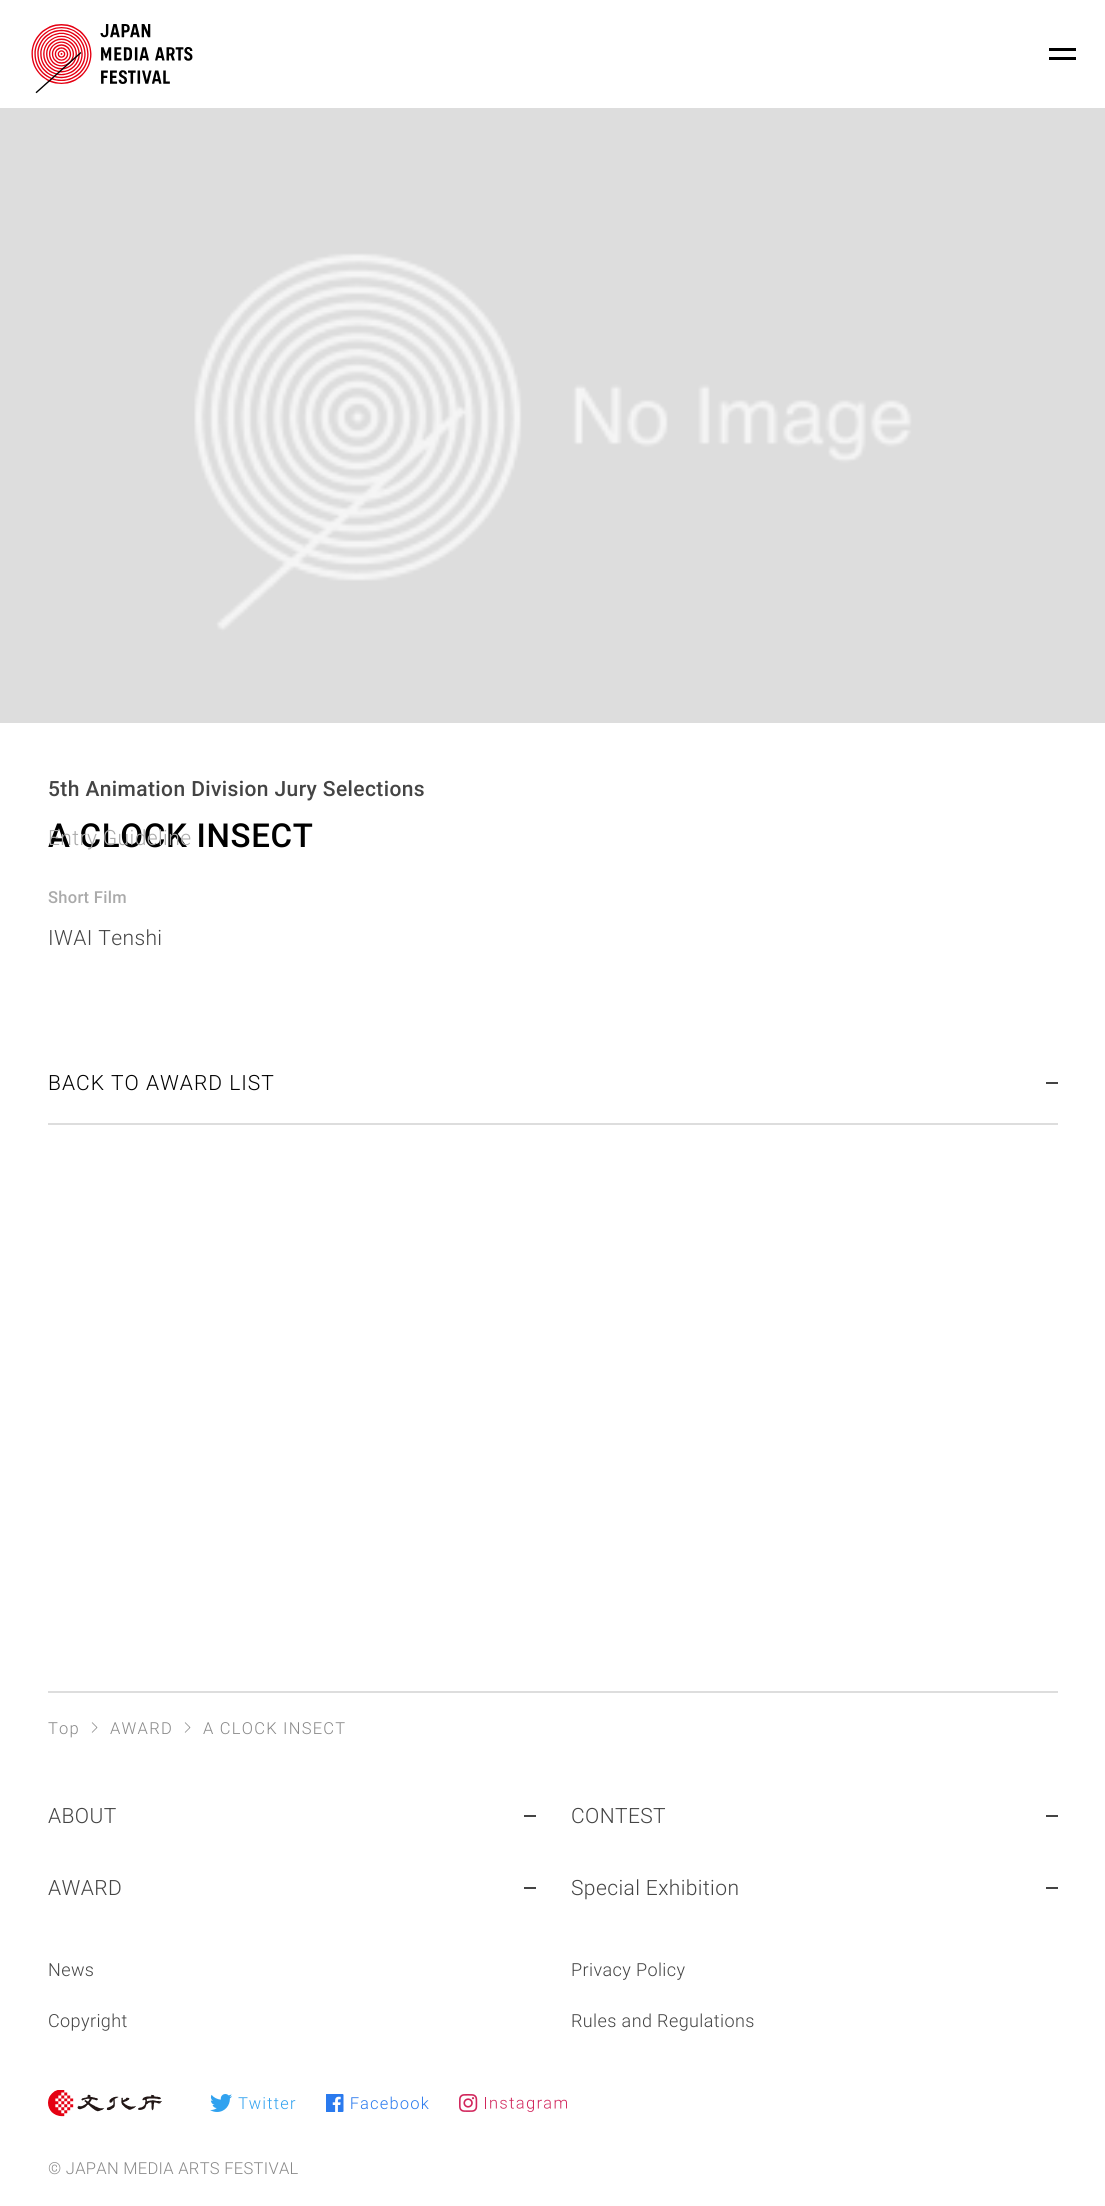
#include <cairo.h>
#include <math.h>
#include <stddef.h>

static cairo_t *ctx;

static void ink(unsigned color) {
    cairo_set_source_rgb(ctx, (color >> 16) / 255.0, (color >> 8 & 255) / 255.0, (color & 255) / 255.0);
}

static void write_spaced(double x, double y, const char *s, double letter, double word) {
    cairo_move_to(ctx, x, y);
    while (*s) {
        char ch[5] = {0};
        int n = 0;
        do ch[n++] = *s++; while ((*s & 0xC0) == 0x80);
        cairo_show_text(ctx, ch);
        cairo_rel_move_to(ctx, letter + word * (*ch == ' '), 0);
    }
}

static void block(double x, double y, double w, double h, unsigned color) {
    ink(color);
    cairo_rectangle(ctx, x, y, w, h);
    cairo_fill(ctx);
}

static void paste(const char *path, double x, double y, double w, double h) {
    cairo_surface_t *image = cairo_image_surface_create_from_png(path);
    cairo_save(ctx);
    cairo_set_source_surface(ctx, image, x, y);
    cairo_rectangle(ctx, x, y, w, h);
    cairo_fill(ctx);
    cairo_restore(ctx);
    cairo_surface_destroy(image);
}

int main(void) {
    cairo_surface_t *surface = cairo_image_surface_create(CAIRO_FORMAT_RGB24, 1105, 2206);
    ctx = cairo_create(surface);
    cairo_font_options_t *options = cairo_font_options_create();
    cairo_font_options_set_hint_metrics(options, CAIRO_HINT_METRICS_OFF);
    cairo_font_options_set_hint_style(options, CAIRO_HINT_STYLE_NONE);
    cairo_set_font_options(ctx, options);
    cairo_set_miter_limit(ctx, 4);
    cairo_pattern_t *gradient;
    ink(0xffffff);
    cairo_paint(ctx);
    paste("pic1.png", 31, 24, 162, 70);
    block(1049, 48, 27, 3, 0x000000);
    block(1049, 57, 27, 3, 0x000000);
    paste("pic2.png", 0, 108, 1105, 615);
    cairo_select_font_face(ctx, "Roboto Medium", CAIRO_FONT_SLANT_NORMAL, CAIRO_FONT_WEIGHT_NORMAL);
    cairo_set_font_size(ctx, 21);
    ink(0x444444);
    write_spaced(48, 796, "5th Animation Division Jury Selections", 0.4, 0);
    cairo_set_font_size(ctx, 33);
    ink(0x000000);
    write_spaced(48, 847, "A CLOCK INSECT", 0.7, 0);
    cairo_set_font_size(ctx, 16.5);
    ink(0xaaaaaa);
    write_spaced(48, 903, "Short Film", 0.3, 0);
    cairo_select_font_face(ctx, "Roboto Light", CAIRO_FONT_SLANT_NORMAL, CAIRO_FONT_WEIGHT_NORMAL);
    cairo_set_font_size(ctx, 21);
    ink(0x444444);
    write_spaced(48, 945, "IWAI Tenshi", 0.4, 0);
    ink(0x000000);
    write_spaced(48, 1090, "BACK TO AWARD LIST", 1, 0);
    block(1046, 1082, 12, 2, 0x444444);
    gradient = cairo_pattern_create_linear(553, 1125, 553, 1073);
    cairo_pattern_add_color_stop_rgba(gradient, 0.03, 0.867, 0.867, 0.867, 1);
    cairo_pattern_add_color_stop_rgba(gradient, 0.03, 0.867, 0.867, 0.867, 0);
    cairo_pattern_add_color_stop_rgba(gradient, 1, 0, 0, 0, 0);
    cairo_set_source(ctx, gradient);
    cairo_pattern_destroy(gradient);
    cairo_rectangle(ctx, 48, 1123, 1010, 2);
    cairo_fill(ctx);
    ink(0xaaaaaa);
    write_spaced(48, 845, "Entry Guideline", 0.4, 0);
    block(48, 1691, 1010, 2, 0xdddddd);
    cairo_set_font_size(ctx, 16.5);
    ink(0x888888);
    write_spaced(48, 1734, "Top", 1.25, 0);
    cairo_new_path(ctx);
    cairo_move_to(ctx, 92, 1732.5);
    cairo_line_to(ctx, 97, 1727.5);
    cairo_line_to(ctx, 92, 1722.5);
    ink(0x666666);
    cairo_set_line_width(ctx, 0.6);
    cairo_stroke(ctx);
    ink(0x888888);
    write_spaced(110, 1734, "AWARD", 1.25, 0);
    cairo_new_path(ctx);
    cairo_move_to(ctx, 185, 1732.5);
    cairo_line_to(ctx, 190, 1727.5);
    cairo_line_to(ctx, 185, 1722.5);
    ink(0x666666);
    cairo_stroke(ctx);
    ink(0x888888);
    write_spaced(203, 1734, "A CLOCK INSECT", 1.25, 0);
    cairo_set_font_size(ctx, 21);
    ink(0x444444);
    write_spaced(48, 1823, "ABOUT", 0.4, 0);
    block(524, 1815, 12, 2, 0x444444);
    write_spaced(571, 1823, "CONTEST", 0.4, 0);
    block(1046, 1815, 12, 2, 0x444444);
    write_spaced(48, 1895, "AWARD", 0.4, 0);
    block(524, 1887, 12, 2, 0x444444);
    write_spaced(571, 1895, "Special Exhibition", 0.4, 0);
    block(1046, 1887, 12, 2, 0x444444);
    cairo_set_font_size(ctx, 18);
    write_spaced(48, 1976, "News", 0.4, 0);
    write_spaced(571, 1976, "Privacy Policy", 0.4, 0);
    write_spaced(48, 2027, "Copyright", 0.4, 0);
    write_spaced(571, 2027, "Rules and Regulations", 0.4, 0);
    paste("pic3.png", 48, 2090, 114, 27);
    paste("pic4.png", 210, 2094, 86, 18);
    paste("pic5.png", 326, 2094, 103, 18);
    paste("pic6.png", 459, 2094, 108, 18);
    cairo_set_font_size(ctx, 16.5);
    ink(0x888888);
    write_spaced(48, 2174, "© JAPAN MEDIA ARTS FESTIVAL", 0.3, 0);
    cairo_surface_write_to_png(surface, "screenshot.png");
    cairo_font_options_destroy(options);
    cairo_destroy(ctx);
    cairo_surface_destroy(surface);
    return 0;
}
